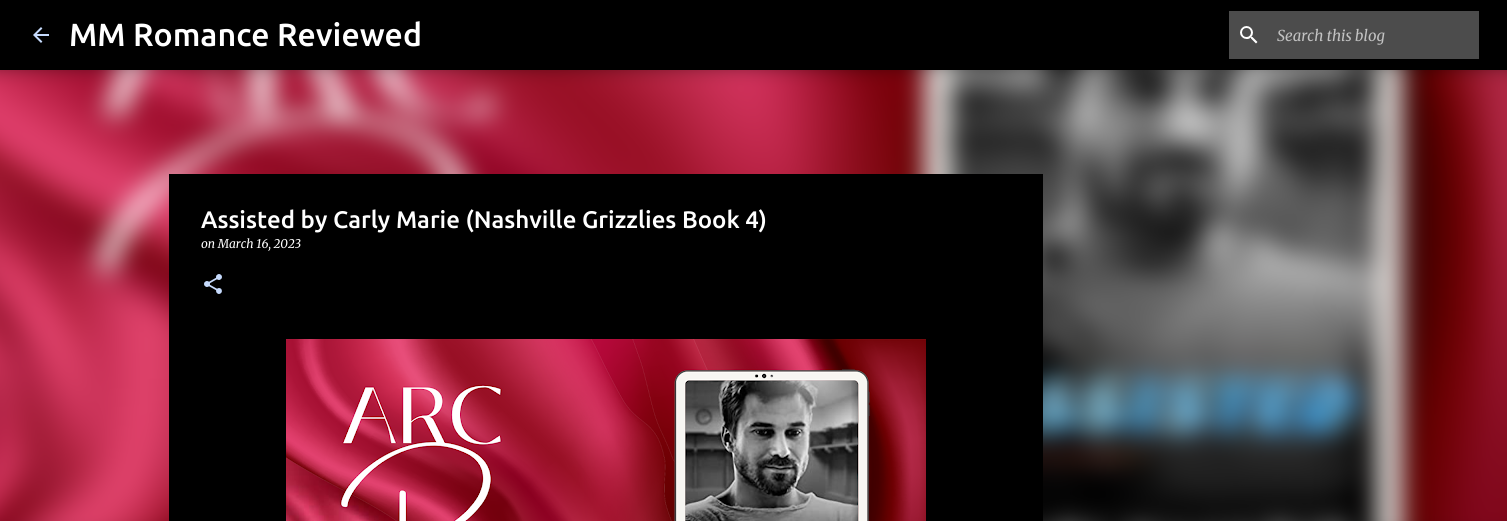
#include <cairo.h>
#include <math.h>
#include <stddef.h>

typedef struct { const char *family; double size; int italic, bold; unsigned color; } style_t;
static cairo_t *ctx;

static void ink(unsigned color) {
    cairo_set_source_rgb(ctx, (color >> 16) / 255.0, (color >> 8 & 255) / 255.0, (color & 255) / 255.0);
}

static void write(double x, double y, const char *s, const style_t *st) {
    cairo_select_font_face(ctx, st->family, st->italic ? CAIRO_FONT_SLANT_ITALIC : CAIRO_FONT_SLANT_NORMAL,
        st->bold ? CAIRO_FONT_WEIGHT_BOLD : CAIRO_FONT_WEIGHT_NORMAL);
    cairo_set_font_size(ctx, st->size);
    ink(st->color);
    cairo_move_to(ctx, x, y);
    cairo_show_text(ctx, s);
}

static void block(double x, double y, double w, double h, unsigned color) {
    ink(color);
    cairo_rectangle(ctx, x, y, w, h);
    cairo_fill(ctx);
}

static void paste(const char *path, double x, double y, double w, double h) {
    cairo_surface_t *image = cairo_image_surface_create_from_png(path);
    cairo_save(ctx);
    cairo_set_source_surface(ctx, image, x, y);
    cairo_rectangle(ctx, x, y, w, h);
    cairo_fill(ctx);
    cairo_restore(ctx);
    cairo_surface_destroy(image);
}

static const style_t s1 = {"Ubuntu Medium", 32, 0, 0, 0xffffff};
static const style_t s2 = {"Merriweather", 15, 1, 0, 0xc2c2c2};
static const style_t s3 = {"Ubuntu Medium", 24, 0, 0, 0xffffff};
static const style_t s4 = {"Merriweather", 12, 1, 0, 0xffffff};

int main(void) {
    cairo_surface_t *surface = cairo_image_surface_create(CAIRO_FORMAT_RGB24, 1507, 521);
    ctx = cairo_create(surface);
    cairo_font_options_t *options = cairo_font_options_create();
    cairo_font_options_set_hint_metrics(options, CAIRO_HINT_METRICS_OFF);
    cairo_font_options_set_hint_style(options, CAIRO_HINT_STYLE_NONE);
    cairo_set_font_options(ctx, options);
    cairo_set_miter_limit(ctx, 4);
    ink(0x000000);
    cairo_paint(ctx);
    paste("pic1.png", 33, 27, 16, 16);
    write(69, 46, "MM Romance Reviewed", &s1);
    block(1229, 11, 250, 48, 0x4c4c4c);
    paste("pic2.png", 1240, 26, 18, 18);
    write(1277, 41, "Search this blog", &s2);
    paste("pic5.png", 0, 70, 1507, 451);
    block(169, 174, 874, 347, 0x000000);
    write(201, 228, "Assisted by Carly Marie (Nashville Grizzlies Book 4)", &s3);
    write(201, 248, "on March 16, 2023", &s4);
    paste("pic3.png", 204, 274, 18, 20);
    paste("pic4.png", 286, 339, 640, 182);
    cairo_surface_write_to_png(surface, "screenshot.png");
    cairo_font_options_destroy(options);
    cairo_destroy(ctx);
    cairo_surface_destroy(surface);
    return 0;
}
